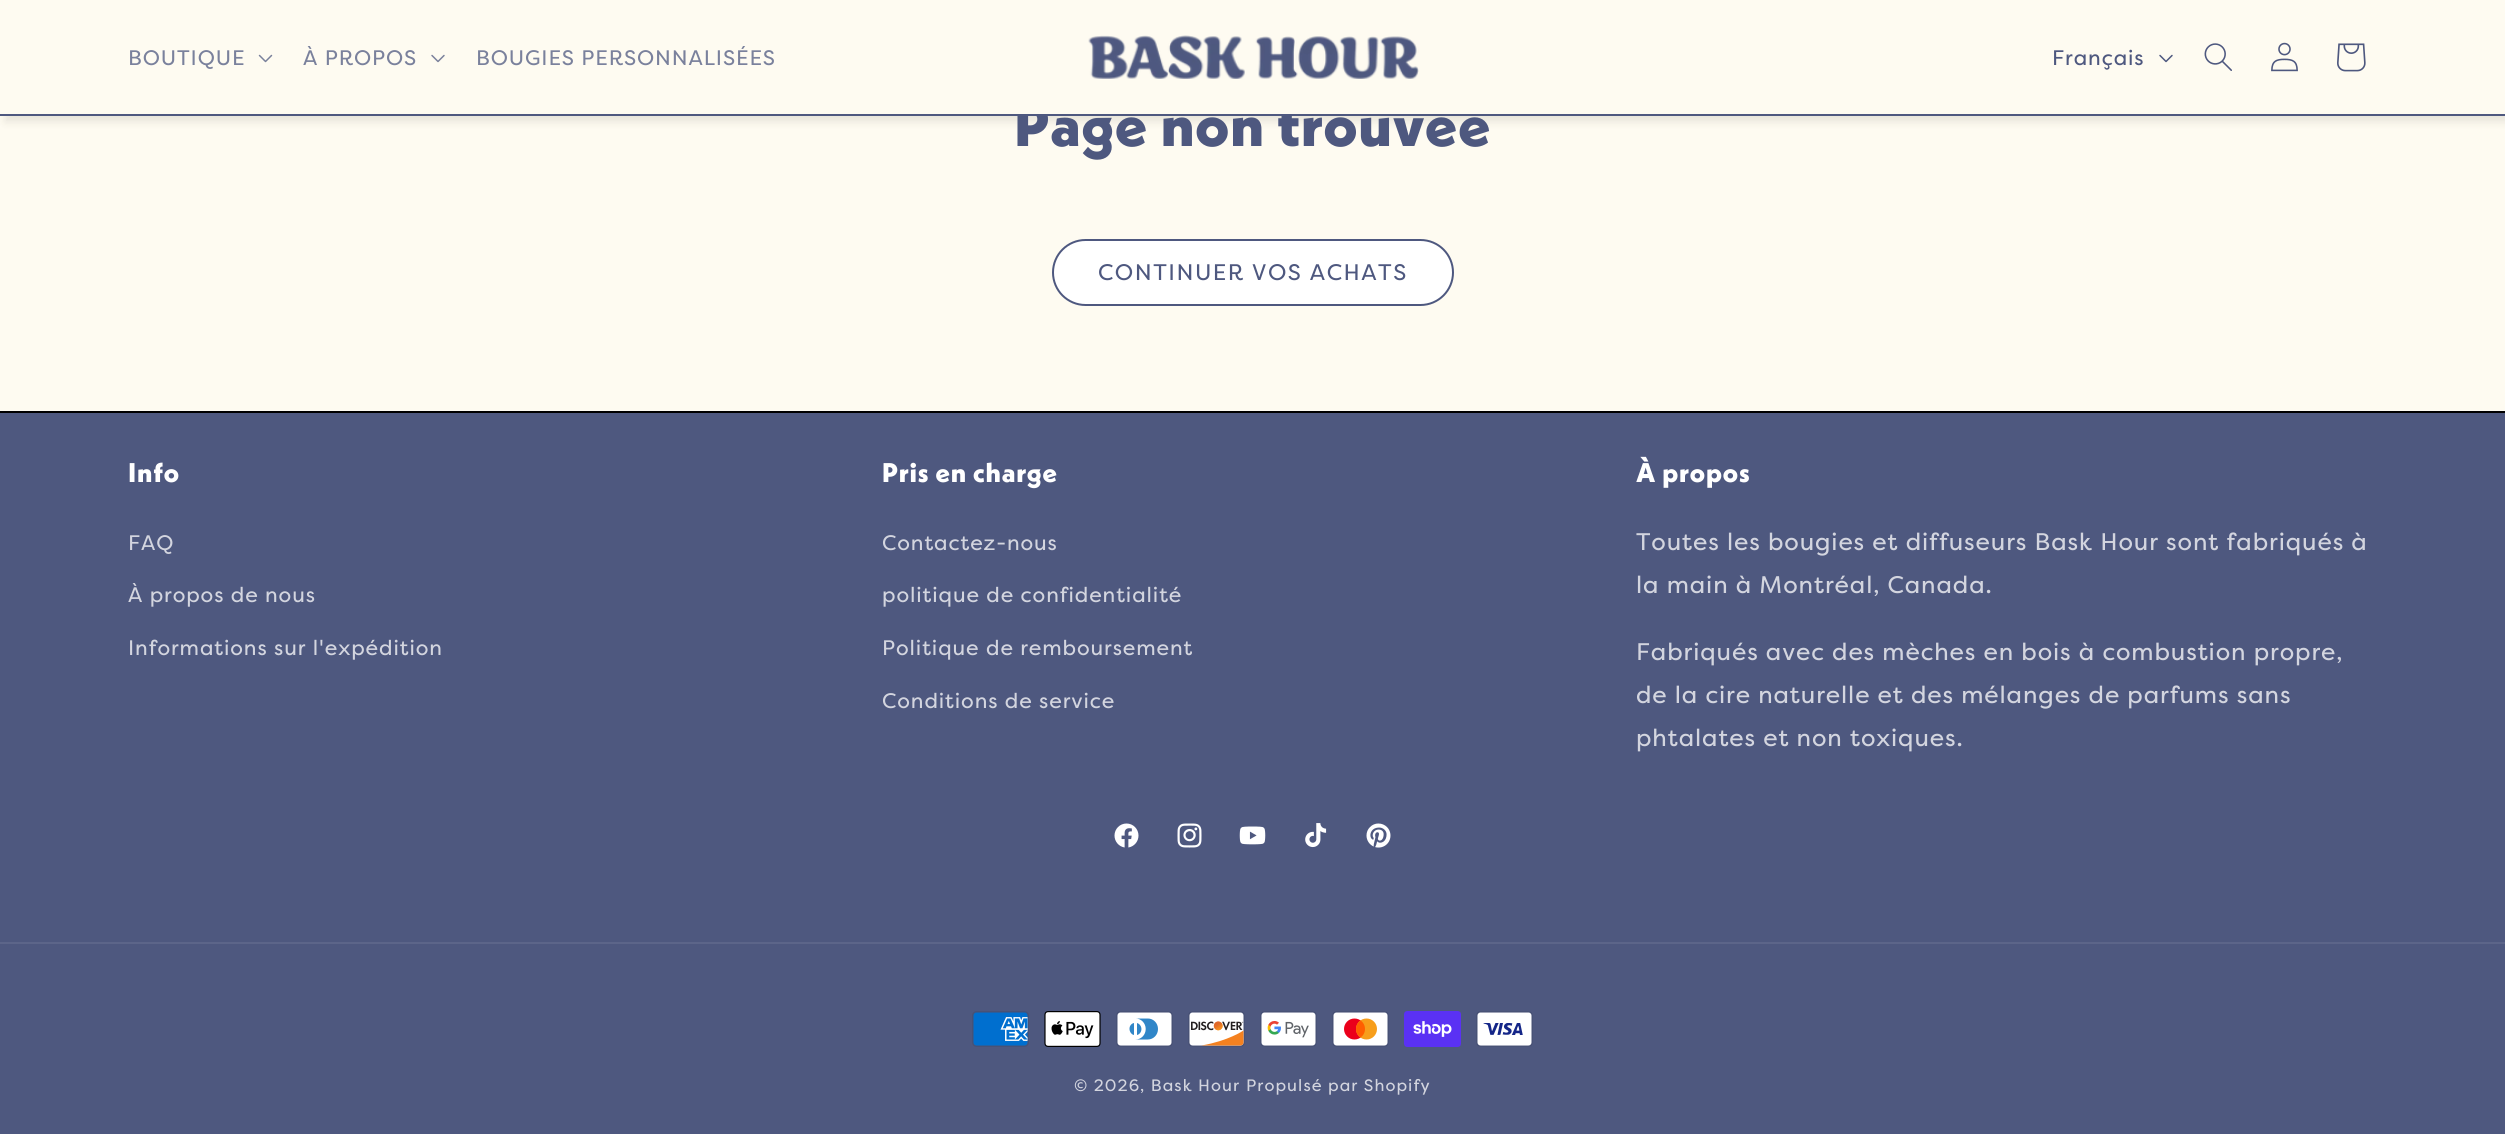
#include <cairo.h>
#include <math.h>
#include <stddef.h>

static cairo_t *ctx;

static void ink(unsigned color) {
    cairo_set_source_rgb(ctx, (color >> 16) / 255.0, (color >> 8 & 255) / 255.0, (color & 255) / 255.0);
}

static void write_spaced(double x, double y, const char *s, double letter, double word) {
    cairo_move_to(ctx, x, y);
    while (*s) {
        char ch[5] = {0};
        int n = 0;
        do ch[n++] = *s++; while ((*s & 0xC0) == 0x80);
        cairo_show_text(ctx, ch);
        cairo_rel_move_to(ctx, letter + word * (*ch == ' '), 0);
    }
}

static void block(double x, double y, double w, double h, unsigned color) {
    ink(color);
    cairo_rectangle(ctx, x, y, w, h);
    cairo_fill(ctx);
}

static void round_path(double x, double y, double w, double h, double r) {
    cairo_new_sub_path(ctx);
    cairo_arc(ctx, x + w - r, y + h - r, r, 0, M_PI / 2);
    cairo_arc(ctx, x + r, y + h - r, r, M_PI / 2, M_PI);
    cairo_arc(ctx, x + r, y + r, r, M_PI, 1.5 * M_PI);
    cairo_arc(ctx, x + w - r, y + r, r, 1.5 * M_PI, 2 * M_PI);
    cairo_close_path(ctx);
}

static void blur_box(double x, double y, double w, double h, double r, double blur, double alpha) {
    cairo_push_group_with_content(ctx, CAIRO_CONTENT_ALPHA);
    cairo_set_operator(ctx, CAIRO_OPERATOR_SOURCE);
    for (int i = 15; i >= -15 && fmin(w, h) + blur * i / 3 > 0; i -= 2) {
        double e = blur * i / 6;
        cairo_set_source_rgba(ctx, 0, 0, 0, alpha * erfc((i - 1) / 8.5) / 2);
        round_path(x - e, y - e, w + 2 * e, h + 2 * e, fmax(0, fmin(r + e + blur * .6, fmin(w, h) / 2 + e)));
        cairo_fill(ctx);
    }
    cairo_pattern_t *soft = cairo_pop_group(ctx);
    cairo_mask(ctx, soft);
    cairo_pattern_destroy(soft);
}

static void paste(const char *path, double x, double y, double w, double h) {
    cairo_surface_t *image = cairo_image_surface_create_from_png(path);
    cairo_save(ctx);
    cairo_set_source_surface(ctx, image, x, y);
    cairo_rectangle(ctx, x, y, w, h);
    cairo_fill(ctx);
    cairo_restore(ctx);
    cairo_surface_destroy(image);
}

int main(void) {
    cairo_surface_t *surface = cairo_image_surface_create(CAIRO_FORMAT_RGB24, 2505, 1134);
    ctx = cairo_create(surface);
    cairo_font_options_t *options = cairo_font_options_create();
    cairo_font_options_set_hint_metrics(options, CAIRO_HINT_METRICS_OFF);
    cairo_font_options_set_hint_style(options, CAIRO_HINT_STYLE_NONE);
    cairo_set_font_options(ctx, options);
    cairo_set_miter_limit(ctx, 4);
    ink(0xfefbf1);
    cairo_paint(ctx);
    ink(0x262115);
    blur_box(5, 5, 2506, 117, 0, 4, 0.1);
    block(0, 114, 2505, 2, 0x4e587f);
    cairo_select_font_face(ctx, "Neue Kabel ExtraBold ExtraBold", CAIRO_FONT_SLANT_NORMAL, CAIRO_FONT_WEIGHT_NORMAL);
    cairo_set_font_size(ctx, 60);
    write_spaced(1014, 146, "Page non trouvée", 0.9, 0);
    block(0, 0, 2505, 114, 0xfefbf1);
    cairo_select_font_face(ctx, "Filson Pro", CAIRO_FONT_SLANT_NORMAL, CAIRO_FONT_WEIGHT_NORMAL);
    cairo_set_font_size(ctx, 21);
    ink(0x7a819c);
    write_spaced(128, 65, "BOUTIQUE", 0.9, 0);
    paste("pic1.png", 258, 54, 15, 9);
    write_spaced(303, 65, "À PROPOS", 0.9, 0);
    paste("pic2.png", 431, 54, 14, 9);
    write_spaced(476, 65, "BOUGIES PERSONNALISÉES", 0.9, 0);
    paste("pic3.png", 1088, 35, 331, 44);
    ink(0x4e587f);
    write_spaced(2052, 65, "Français", 0.9, 0);
    paste("pic4.png", 2159, 54, 14, 9);
    paste("pic5.png", 2204, 43, 28, 28);
    paste("pic6.png", 2271, 42, 27, 30);
    paste("pic7.png", 2337, 43, 29, 29);
    ink(0xffffff);
    round_path(1053, 240, 400, 65, 32.5);
    cairo_fill_preserve(ctx);
    ink(0x4e587f);
    cairo_stroke(ctx);
    cairo_set_font_size(ctx, 22.5);
    write_spaced(1098, 280, "CONTINUER VOS ACHATS", 1.5, 0);
    block(0, 413, 2505, 721, 0x4e587f);
    block(0, 411, 2505, 2, 0x000000);
    cairo_select_font_face(ctx, "Neue Kabel ExtraBold ExtraBold", CAIRO_FONT_SLANT_NORMAL, CAIRO_FONT_WEIGHT_NORMAL);
    cairo_set_font_size(ctx, 27);
    ink(0xffffff);
    write_spaced(128, 482, "Info", 0.9, 0);
    cairo_select_font_face(ctx, "Filson Pro", CAIRO_FONT_SLANT_NORMAL, CAIRO_FONT_WEIGHT_NORMAL);
    cairo_set_font_size(ctx, 21);
    ink(0xd3d5df);
    write_spaced(128, 550, "FAQ", 0.9, 0);
    write_spaced(128, 602, "À propos de nous", 0.9, 0);
    write_spaced(128, 655, "Informations sur l'expédition", 0.9, 0);
    cairo_select_font_face(ctx, "Neue Kabel ExtraBold ExtraBold", CAIRO_FONT_SLANT_NORMAL, CAIRO_FONT_WEIGHT_NORMAL);
    cairo_set_font_size(ctx, 27);
    ink(0xffffff);
    write_spaced(882, 482, "Pris en charge", 0.9, 0);
    cairo_select_font_face(ctx, "Filson Pro", CAIRO_FONT_SLANT_NORMAL, CAIRO_FONT_WEIGHT_NORMAL);
    cairo_set_font_size(ctx, 21);
    ink(0xd3d5df);
    write_spaced(882, 550, "Contactez-nous", 0.9, 0);
    write_spaced(882, 602, "politique de confidentialité", 0.9, 0);
    write_spaced(882, 655, "Politique de remboursement", 0.9, 0);
    write_spaced(882, 708, "Conditions de service", 0.9, 0);
    cairo_select_font_face(ctx, "Neue Kabel ExtraBold ExtraBold", CAIRO_FONT_SLANT_NORMAL, CAIRO_FONT_WEIGHT_NORMAL);
    cairo_set_font_size(ctx, 27);
    ink(0xffffff);
    write_spaced(1636, 482, "À propos", 0.9, 0);
    cairo_select_font_face(ctx, "Filson Pro", CAIRO_FONT_SLANT_NORMAL, CAIRO_FONT_WEIGHT_NORMAL);
    cairo_set_font_size(ctx, 24);
    ink(0xd3d5df);
    write_spaced(1636, 550, "Toutes les bougies et diffuseurs Bask Hour sont fabriqués à", 0.9, 0);
    write_spaced(1636, 593, "la main à Montréal, Canada.", 0.9, 0);
    write_spaced(1636, 660, "Fabriqués avec des mèches en bois à combustion propre,", 0.9, 0);
    write_spaced(1636, 703, "de la cire naturelle et des mélanges de parfums sans", 0.9, 0);
    write_spaced(1636, 746, "phtalates et non toxiques.", 0.9, 0);
    paste("pic8.png", 1114, 823, 25, 25);
    paste("pic9.png", 1177, 823, 25, 25);
    paste("pic10.png", 1239, 826, 27, 19);
    paste("pic11.png", 1305, 823, 22, 25);
    paste("pic12.png", 1366, 823, 25, 25);
    block(0, 942, 2505, 2, 0x5c6589);
    paste("pic13.png", 972, 1011, 57, 36);
    paste("pic14.png", 1044, 1011, 57, 36);
    paste("pic15.png", 1116, 1011, 57, 36);
    paste("pic16.png", 1188, 1011, 57, 36);
    paste("pic17.png", 1260, 1011, 57, 36);
    paste("pic18.png", 1332, 1011, 57, 36);
    paste("pic19.png", 1404, 1011, 57, 36);
    paste("pic20.png", 1476, 1011, 57, 36);
    cairo_set_font_size(ctx, 16.5);
    ink(0xd3d5df);
    write_spaced(1074, 1091, "© 2026, Bask Hour", 1.05, 0);
    write_spaced(1246, 1091, "Propulsé par Shopify", 1.05, 0);
    cairo_surface_write_to_png(surface, "screenshot.png");
    cairo_font_options_destroy(options);
    cairo_destroy(ctx);
    cairo_surface_destroy(surface);
    return 0;
}
